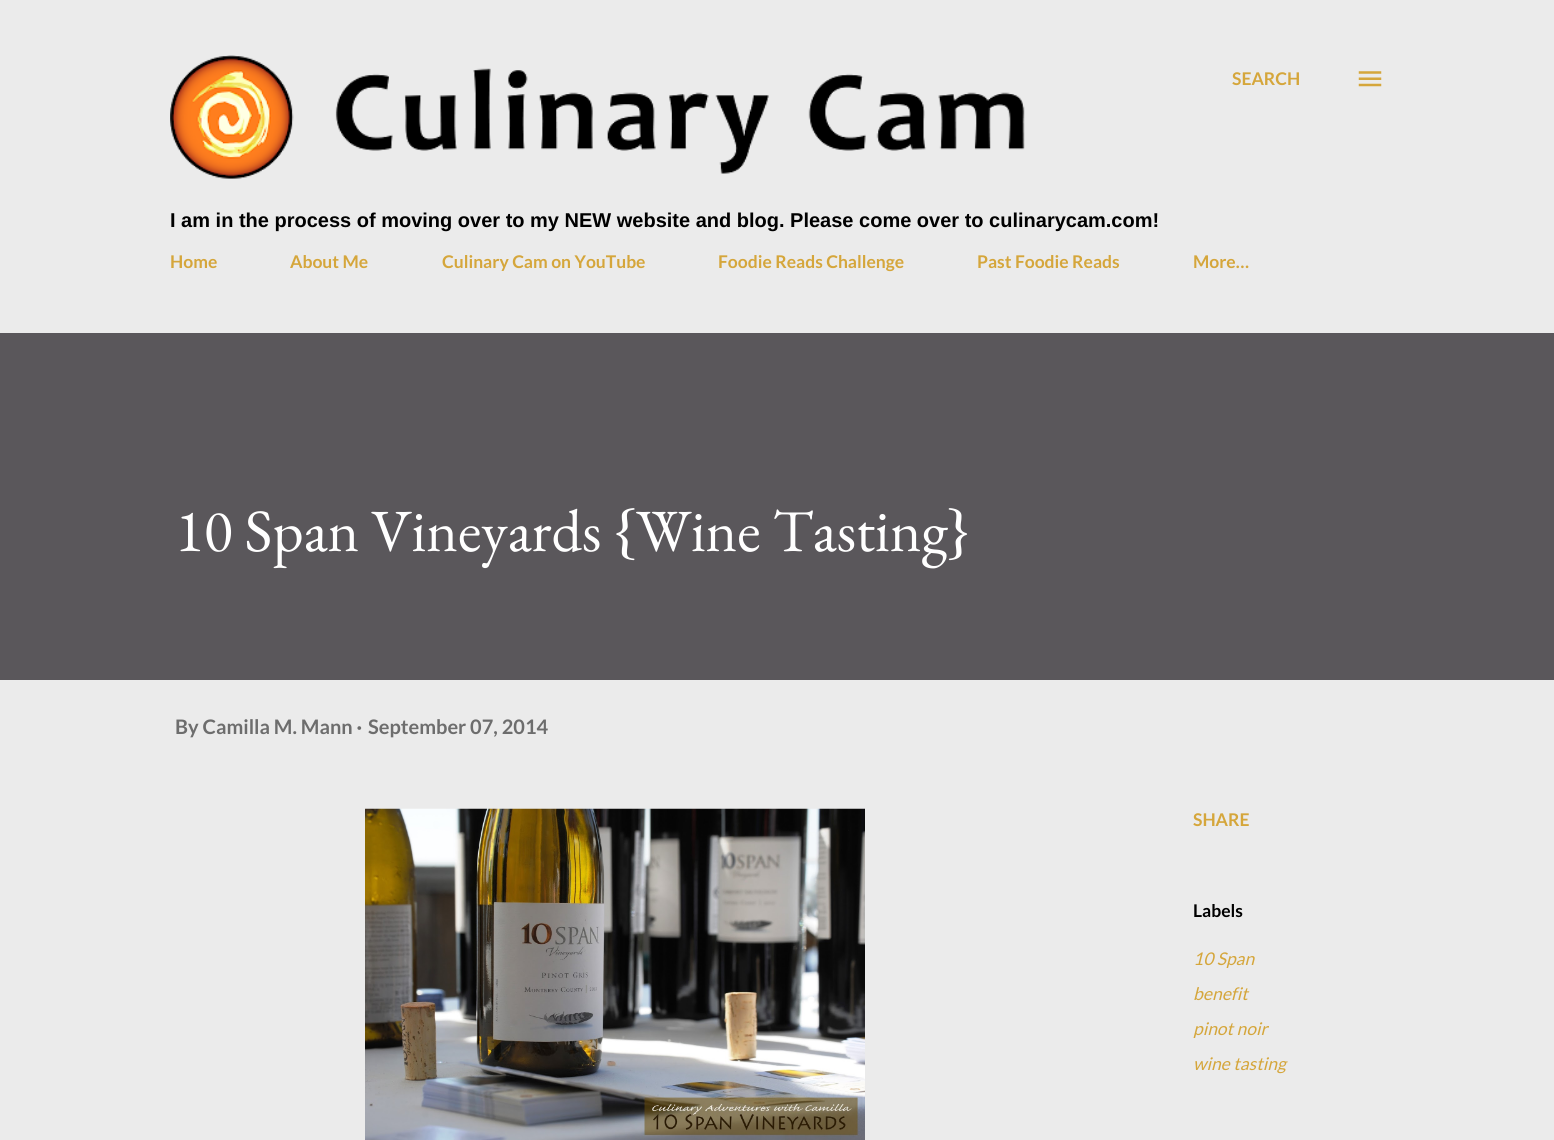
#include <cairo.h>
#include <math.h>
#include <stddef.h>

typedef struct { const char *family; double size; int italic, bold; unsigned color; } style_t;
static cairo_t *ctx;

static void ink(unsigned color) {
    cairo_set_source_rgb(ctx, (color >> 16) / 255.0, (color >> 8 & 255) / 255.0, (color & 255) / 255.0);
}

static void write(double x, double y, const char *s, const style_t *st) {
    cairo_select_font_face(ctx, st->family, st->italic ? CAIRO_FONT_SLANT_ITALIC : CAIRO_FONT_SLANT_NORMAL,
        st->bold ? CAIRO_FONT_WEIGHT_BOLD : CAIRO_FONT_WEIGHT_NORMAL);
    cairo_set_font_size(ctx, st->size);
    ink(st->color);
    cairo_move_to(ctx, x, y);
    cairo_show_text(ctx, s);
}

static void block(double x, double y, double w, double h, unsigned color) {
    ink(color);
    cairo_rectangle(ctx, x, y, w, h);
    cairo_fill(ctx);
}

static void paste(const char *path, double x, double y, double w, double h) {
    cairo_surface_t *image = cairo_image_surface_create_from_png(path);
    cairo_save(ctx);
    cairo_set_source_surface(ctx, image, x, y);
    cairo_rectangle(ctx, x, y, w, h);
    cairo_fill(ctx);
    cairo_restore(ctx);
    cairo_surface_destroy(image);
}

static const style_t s1 = {"Lato", 17.5, 0, 1, 0xd5a63b};
static const style_t s2 = {"Liberation Sans", 20, 0, 1, 0x000000};
static const style_t s3 = {"EB Garamond", 60, 0, 0, 0xffffff};
static const style_t s4 = {"Lato", 20, 0, 1, 0x6d6d6d};
static const style_t s5 = {"Lato", 17.5, 0, 1, 0x000000};
static const style_t s6 = {"Lato", 17.5, 1, 0, 0xd5a63b};

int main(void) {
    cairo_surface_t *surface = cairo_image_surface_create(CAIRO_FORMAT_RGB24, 1554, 1140);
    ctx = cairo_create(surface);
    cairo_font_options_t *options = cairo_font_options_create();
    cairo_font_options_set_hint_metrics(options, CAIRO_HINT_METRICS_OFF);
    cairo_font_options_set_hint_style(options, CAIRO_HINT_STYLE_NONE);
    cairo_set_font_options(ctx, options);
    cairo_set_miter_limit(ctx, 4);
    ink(0xebebeb);
    cairo_paint(ctx);
    write(1232, 85, "SEARCH", &s1);
    paste("pic1.png", 170, 55, 855, 124);
    write(170, 227, "I am in the process of moving over to my NEW website and blog. Please come over to culinarycam.com!", &s2);
    paste("pic2.png", 1358, 71, 24, 16);
    write(170, 268, "Home", &s1);
    write(290, 268, "About Me", &s1);
    write(442, 268, "Culinary Cam on YouTube", &s1);
    write(718, 268, "Foodie Reads Challenge", &s1);
    write(977, 268, "Past Foodie Reads", &s1);
    write(1193, 268, "More…", &s1);
    block(0, 333, 1554, 347, 0x5a575b);
    write(175, 551, "10 Span Vineyards {Wine Tasting}", &s3);
    write(175, 734, "By Camilla M. Mann ·", &s4);
    write(368, 734, "September 07, 2014", &s4);
    paste("pic3.png", 365, 808, 500, 332);
    write(1193, 826, "SHARE", &s1);
    write(1193, 917, "Labels", &s5);
    write(1193, 965, "10 Span", &s6);
    write(1193, 1000, "benefit", &s6);
    write(1193, 1035, "pinot noir", &s6);
    write(1193, 1070, "wine tasting", &s6);
    cairo_surface_write_to_png(surface, "screenshot.png");
    cairo_font_options_destroy(options);
    cairo_destroy(ctx);
    cairo_surface_destroy(surface);
    return 0;
}
